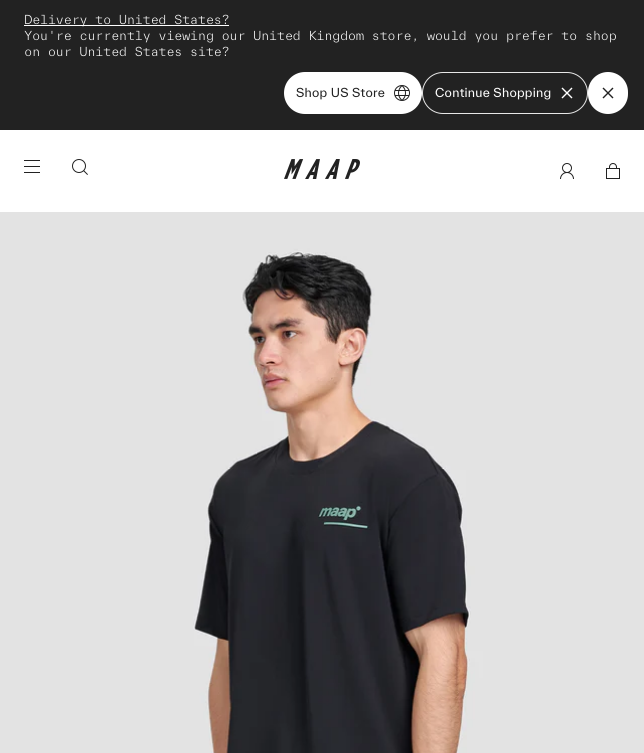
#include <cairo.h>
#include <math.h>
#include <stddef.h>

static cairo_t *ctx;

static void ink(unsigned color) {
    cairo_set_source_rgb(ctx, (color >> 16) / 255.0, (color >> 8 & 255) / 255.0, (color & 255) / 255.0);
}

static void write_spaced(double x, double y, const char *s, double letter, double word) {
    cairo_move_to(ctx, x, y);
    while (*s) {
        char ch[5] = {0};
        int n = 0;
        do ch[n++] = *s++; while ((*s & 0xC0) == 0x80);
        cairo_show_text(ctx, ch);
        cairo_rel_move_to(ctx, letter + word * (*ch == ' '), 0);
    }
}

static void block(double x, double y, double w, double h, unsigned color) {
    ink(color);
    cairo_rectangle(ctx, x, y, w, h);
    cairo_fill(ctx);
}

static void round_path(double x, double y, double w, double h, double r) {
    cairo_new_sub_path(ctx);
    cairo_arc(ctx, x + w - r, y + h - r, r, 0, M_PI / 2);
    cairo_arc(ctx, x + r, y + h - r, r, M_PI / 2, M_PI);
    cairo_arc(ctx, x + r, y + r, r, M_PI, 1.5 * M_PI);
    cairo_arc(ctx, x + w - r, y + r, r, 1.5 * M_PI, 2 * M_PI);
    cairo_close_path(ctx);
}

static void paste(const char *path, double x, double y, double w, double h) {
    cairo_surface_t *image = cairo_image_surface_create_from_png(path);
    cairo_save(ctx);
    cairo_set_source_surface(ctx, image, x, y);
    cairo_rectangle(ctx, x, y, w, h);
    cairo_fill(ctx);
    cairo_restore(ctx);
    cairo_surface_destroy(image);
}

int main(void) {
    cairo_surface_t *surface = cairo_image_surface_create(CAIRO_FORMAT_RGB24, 644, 753);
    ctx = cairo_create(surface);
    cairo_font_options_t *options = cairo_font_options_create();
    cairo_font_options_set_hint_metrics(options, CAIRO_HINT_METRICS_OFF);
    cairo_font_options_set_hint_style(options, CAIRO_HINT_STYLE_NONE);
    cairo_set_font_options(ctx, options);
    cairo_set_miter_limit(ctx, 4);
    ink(0xffffff);
    cairo_paint(ctx);
    block(0, 0, 644, 130, 0x222222);
    block(24, 25, 205, 1, 0xffffff);
    cairo_select_font_face(ctx, "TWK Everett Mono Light", CAIRO_FONT_SLANT_NORMAL, CAIRO_FONT_WEIGHT_NORMAL);
    cairo_set_font_size(ctx, 12);
    write_spaced(24, 24, "Delivery to United States?", -0.5, 0);
    write_spaced(24, 40, "You're currently viewing our United Kingdom store, would you prefer to shop", -0.5, 0);
    write_spaced(24, 56, "on our United States site?", -0.5, 0);
    round_path(284, 72, 138, 42, 21);
    cairo_fill(ctx);
    cairo_select_font_face(ctx, "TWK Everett", CAIRO_FONT_SLANT_NORMAL, CAIRO_FONT_WEIGHT_NORMAL);
    ink(0x222222);
    write_spaced(296, 97, "Shop US Store", 0.25, 0);
    paste("pic1.png", 394, 85, 16, 16);
    round_path(422.5, 72.5, 165, 41, 20.5);
    ink(0xe7e7e7);
    cairo_set_line_width(ctx, 1);
    cairo_stroke(ctx);
    ink(0xffffff);
    write_spaced(435, 97, "Continue Shopping", 0.25, 0);
    paste("pic2.png", 561, 87, 12, 12);
    round_path(588, 72, 40, 42, 20);
    cairo_fill(ctx);
    paste("pic3.png", 602, 87, 12, 12);
    block(24, 160, 16, 1, 0x222222);
    block(24, 166, 16, 1, 0x222222);
    block(24, 172, 16, 1, 0x222222);
    paste("pic4.png", 72, 159, 16, 16);
    paste("pic5.png", 284, 159, 76, 20);
    paste("pic6.png", 560, 163, 14, 16);
    paste("pic7.png", 606, 163, 14, 16);
    paste("pic8.png", 0, 212, 644, 541);
    cairo_surface_write_to_png(surface, "screenshot.png");
    cairo_font_options_destroy(options);
    cairo_destroy(ctx);
    cairo_surface_destroy(surface);
    return 0;
}
